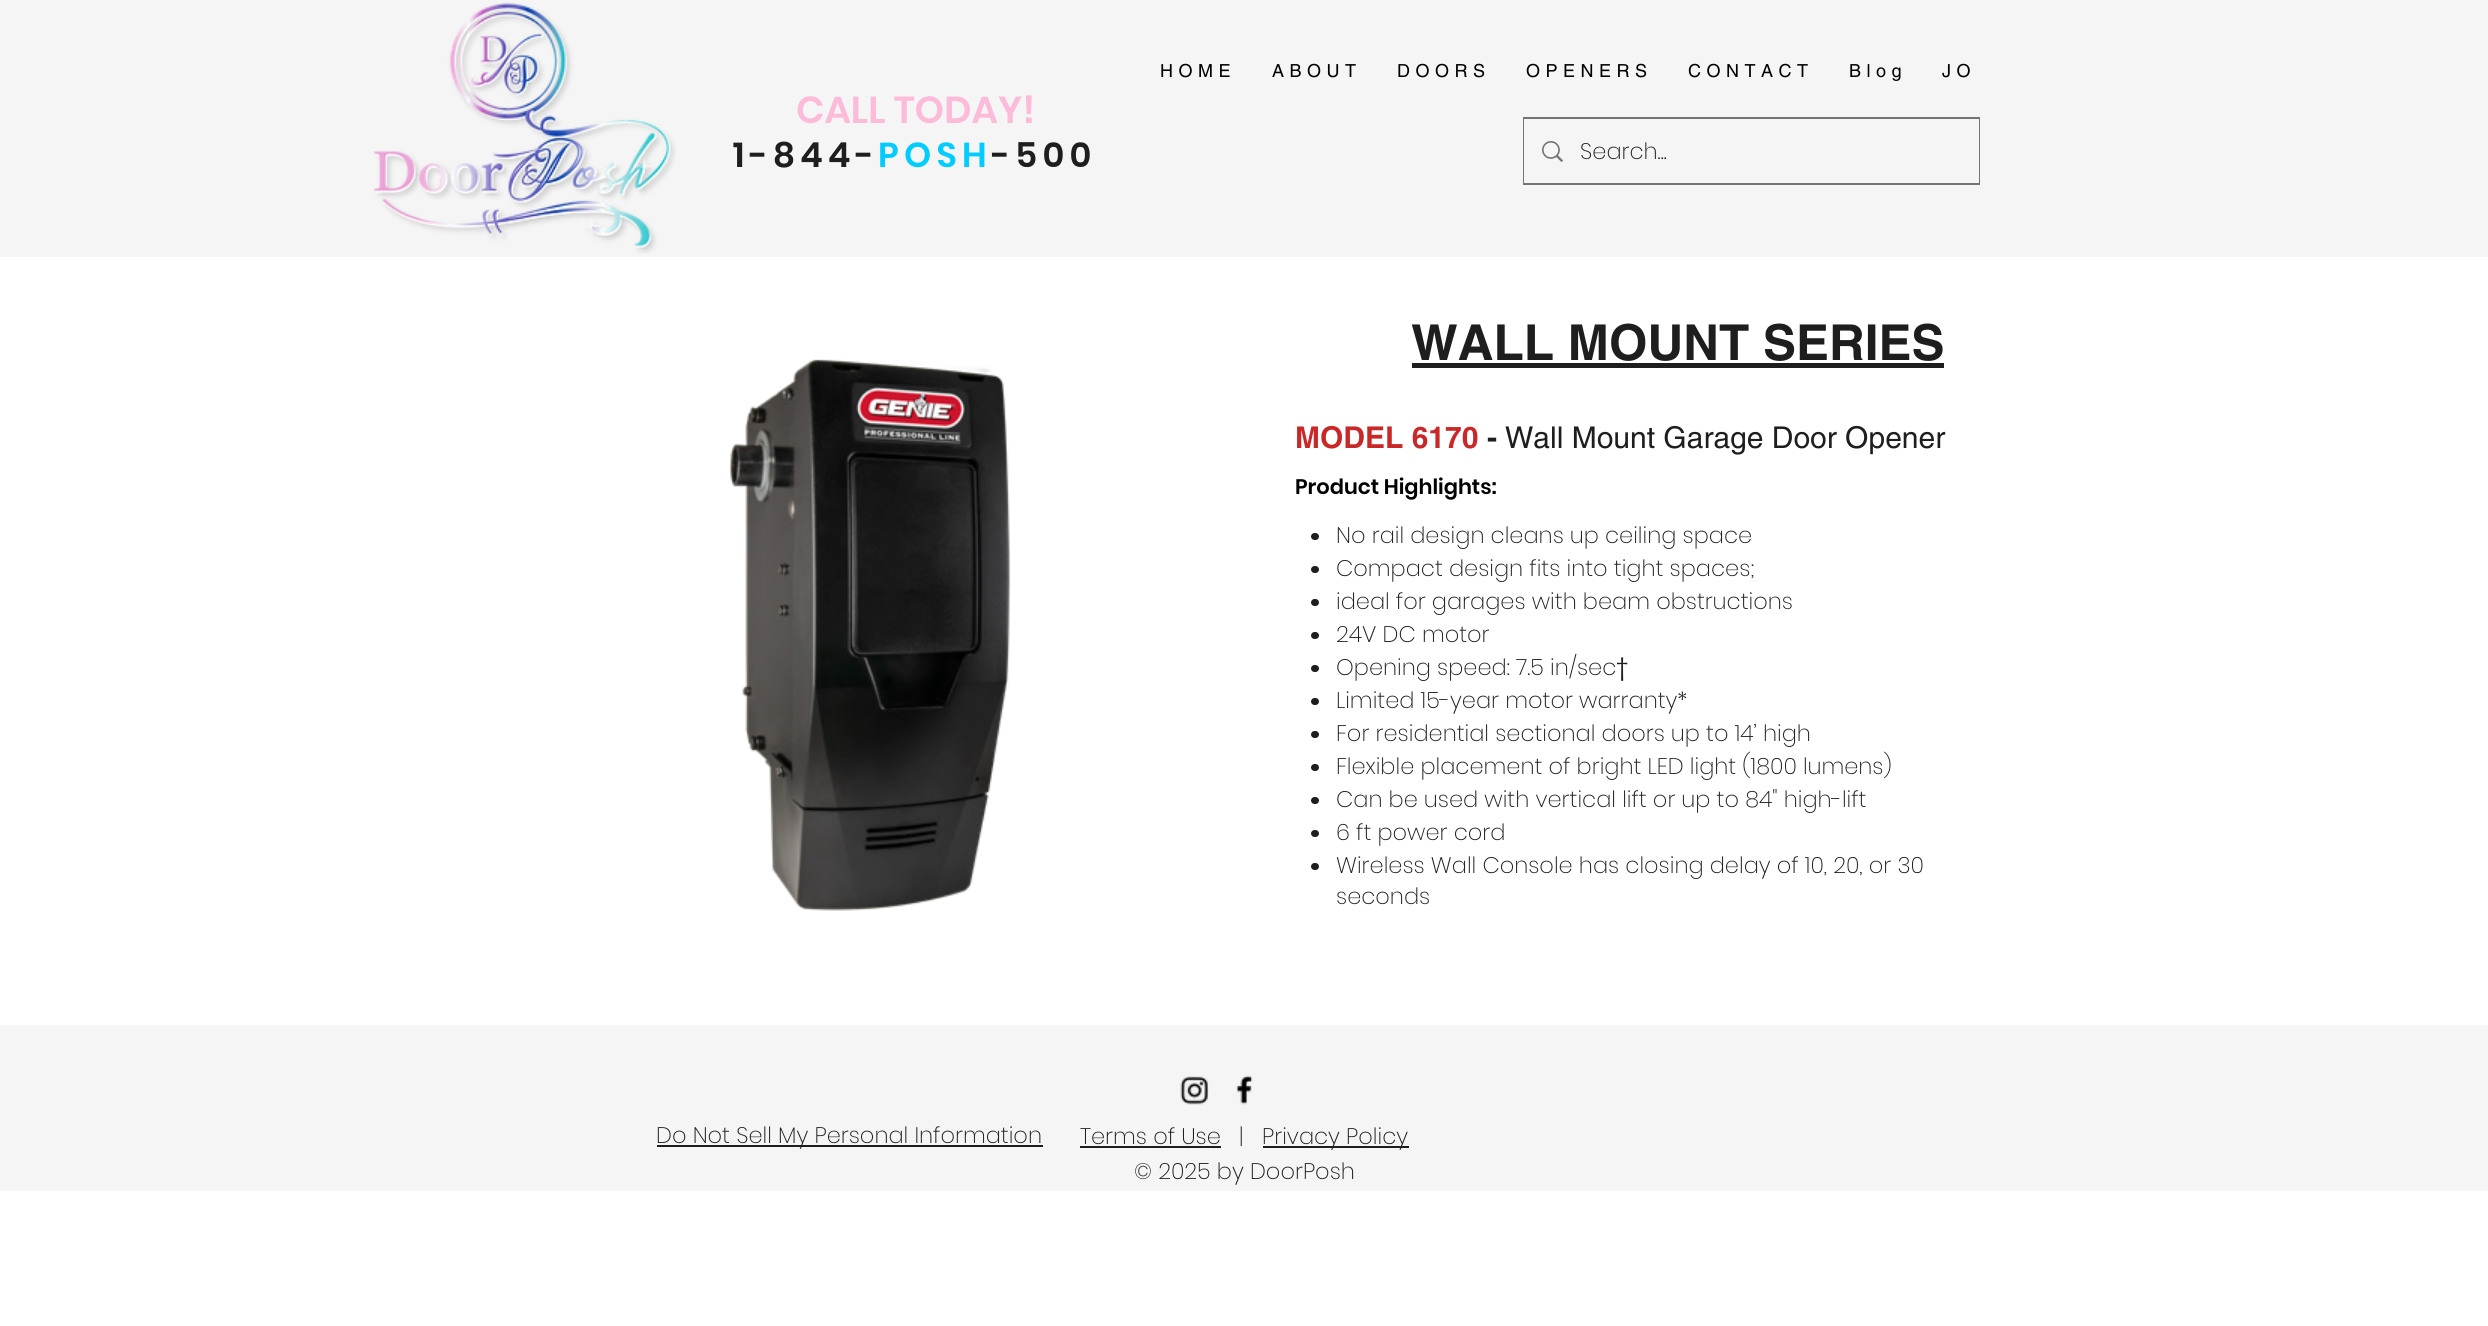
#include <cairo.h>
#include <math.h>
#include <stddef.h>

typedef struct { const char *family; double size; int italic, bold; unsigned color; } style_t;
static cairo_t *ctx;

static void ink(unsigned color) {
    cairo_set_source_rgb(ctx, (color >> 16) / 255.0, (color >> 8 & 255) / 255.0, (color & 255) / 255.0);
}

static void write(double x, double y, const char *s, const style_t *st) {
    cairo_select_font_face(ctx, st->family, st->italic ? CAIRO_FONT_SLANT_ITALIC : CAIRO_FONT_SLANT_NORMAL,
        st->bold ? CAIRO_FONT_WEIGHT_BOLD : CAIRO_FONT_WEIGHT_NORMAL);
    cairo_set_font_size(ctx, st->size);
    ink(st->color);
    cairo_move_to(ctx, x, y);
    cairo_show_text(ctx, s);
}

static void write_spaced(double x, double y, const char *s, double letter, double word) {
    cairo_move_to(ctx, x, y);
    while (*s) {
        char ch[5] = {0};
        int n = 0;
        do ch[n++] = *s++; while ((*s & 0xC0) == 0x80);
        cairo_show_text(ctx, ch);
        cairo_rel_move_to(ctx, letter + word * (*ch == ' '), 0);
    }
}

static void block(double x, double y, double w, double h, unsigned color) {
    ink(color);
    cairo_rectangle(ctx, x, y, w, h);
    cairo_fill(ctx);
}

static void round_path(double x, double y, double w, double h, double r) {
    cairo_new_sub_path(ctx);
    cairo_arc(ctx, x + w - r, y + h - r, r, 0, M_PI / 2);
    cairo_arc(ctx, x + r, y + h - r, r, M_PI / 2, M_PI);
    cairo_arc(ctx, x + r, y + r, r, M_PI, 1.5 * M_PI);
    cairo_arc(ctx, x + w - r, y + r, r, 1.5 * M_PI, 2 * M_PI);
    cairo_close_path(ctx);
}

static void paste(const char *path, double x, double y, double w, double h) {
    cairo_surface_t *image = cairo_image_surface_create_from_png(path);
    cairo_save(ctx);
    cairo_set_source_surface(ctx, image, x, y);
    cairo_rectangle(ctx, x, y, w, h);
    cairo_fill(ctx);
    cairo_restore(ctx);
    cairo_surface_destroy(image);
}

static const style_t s1 = {"Poppins SemiBold", 37.5, 0, 0, 0xfdbbda};
static const style_t s2 = {"Poppins ExtraLight", 22.5, 0, 0, 0x1e1e1e};
static const style_t s3 = {"helvetica", 49.5, 0, 1, 0x1e1e1e};
static const style_t s4 = {"helvetica", 30, 0, 1, 0xc92828};
static const style_t s5 = {"helvetica", 30, 0, 1, 0x1e1e1e};
static const style_t s6 = {"helvetica", 30, 0, 0, 0x1e1e1e};
static const style_t s7 = {"Poppins SemiBold", 21, 0, 0, 0x000000};
static const style_t s8 = {"Poppins", 22.5, 0, 0, 0x1e1e1e};

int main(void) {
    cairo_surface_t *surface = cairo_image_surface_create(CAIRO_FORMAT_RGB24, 2488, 1326);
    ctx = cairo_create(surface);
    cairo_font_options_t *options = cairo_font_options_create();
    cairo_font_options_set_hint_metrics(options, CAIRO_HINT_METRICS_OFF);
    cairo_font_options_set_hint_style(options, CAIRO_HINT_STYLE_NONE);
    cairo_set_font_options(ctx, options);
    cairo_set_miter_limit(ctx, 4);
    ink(0xffffff);
    cairo_paint(ctx);
    block(0, 0, 2488, 257, 0xf5f5f5);
    paste("pic1.png", 373, 2, 303, 252);
    cairo_select_font_face(ctx, "helvetica", CAIRO_FONT_SLANT_NORMAL, CAIRO_FONT_WEIGHT_NORMAL);
    cairo_set_font_size(ctx, 18);
    ink(0x000000);
    write_spaced(1160, 77, "HOME", 5.5, 0);
    write_spaced(1272, 77, "ABOUT", 5.5, 0);
    write_spaced(1397, 77, "DOORS", 5.5, 0);
    write_spaced(1526, 77, "OPENERS", 5.5, 0);
    write_spaced(1688, 77, "CONTACT", 5.5, 0);
    write_spaced(1849, 77, "Blog", 5.5, 0);
    write_spaced(1942, 77, "JO", 5.5, 0);
    write(796, 123, "CALL TODAY!", &s1);
    cairo_set_font_size(ctx, 34.5);
    ink(0x1e1e1e);
    write_spaced(733, 167, "1-844-", 5.25, 0);
    ink(0x00cdff);
    write_spaced(878, 167, "POSH", 5.25, 0);
    ink(0x1e1e1e);
    write_spaced(992, 167, "-500", 5.25, 0);
    cairo_rectangle(ctx, 1524, 118, 455, 66);
    ink(0x747474);
    cairo_stroke(ctx);
    block(1524, 119, 455, 64, 0xf5f5f5);
    paste("pic2.png", 1542, 141, 21, 21);
    write(1580, 159, "Search...", &s2);
    write(1411, 360, "WALL MOUNT SERIES", &s3);
    block(1412, 363, 532, 5, 0x1e1e1e);
    paste("pic3.png", 729, 359, 282, 552);
    write(1295, 448, "MODEL 6170", &s4);
    write(1487, 448, "-", &s5);
    write(1505, 448, "Wall Mount Garage Door Opener", &s6);
    write(1295, 494, "Product Highlights:", &s7);
    ink(0x1e1e1e);
    round_path(1311, 533, 8, 7, 3.5);
    cairo_fill(ctx);
    write(1336, 543, "No rail design cleans up ceiling space", &s2);
    round_path(1311, 566, 8, 7, 3.5);
    cairo_fill(ctx);
    write(1336, 576, "Compact design fits into tight spaces;", &s2);
    round_path(1311, 599, 8, 7, 3.5);
    cairo_fill(ctx);
    write(1336, 609, "ideal for garages with beam obstructions", &s2);
    round_path(1311, 632, 8, 7, 3.5);
    cairo_fill(ctx);
    write(1336, 642, "24V DC motor", &s2);
    round_path(1311, 665, 8, 7, 3.5);
    cairo_fill(ctx);
    write(1336, 675, "Opening speed: 7.5 in/sec", &s2);
    write(1616, 675, "†", &s8);
    round_path(1311, 698, 8, 7, 3.5);
    cairo_fill(ctx);
    write(1336, 708, "Limited 15-year motor warranty*", &s2);
    round_path(1311, 731, 8, 7, 3.5);
    cairo_fill(ctx);
    write(1336, 741, "For residential sectional doors up to 14’ high", &s2);
    round_path(1311, 764, 8, 7, 3.5);
    cairo_fill(ctx);
    write(1336, 774, "Flexible placement of bright LED light (1800 lumens)", &s2);
    round_path(1311, 797, 8, 7, 3.5);
    cairo_fill(ctx);
    write(1336, 807, "Can be used with vertical lift or up to 84\" high-lift", &s2);
    round_path(1311, 830, 8, 7, 3.5);
    cairo_fill(ctx);
    write(1336, 840, "6 ft power cord", &s2);
    round_path(1311, 863, 8, 7, 3.5);
    cairo_fill(ctx);
    write(1336, 873, "Wireless Wall Console has closing delay of 10, 20, or 30", &s2);
    write(1336, 904, "seconds", &s2);
    block(0, 1025, 2488, 166, 0xf5f5f5);
    paste("pic4.png", 1180, 1076, 29, 29);
    paste("pic5.png", 1236, 1075, 17, 30);
    block(657, 1145, 386, 2, 0x1e1e1e);
    write(656, 1143, "Do Not Sell My Personal Information", &s2);
    write(1080, 1144, "Terms of Use", &s2);
    block(1080, 1146, 141, 2, 0x1e1e1e);
    write(1239, 1144, "|", &s2);
    block(1263, 1146, 146, 2, 0x1e1e1e);
    write(1262, 1144, "Privacy Policy", &s2);
    write(1134, 1179, "© 2025 by DoorPosh", &s2);
    cairo_surface_write_to_png(surface, "screenshot.png");
    cairo_font_options_destroy(options);
    cairo_destroy(ctx);
    cairo_surface_destroy(surface);
    return 0;
}
